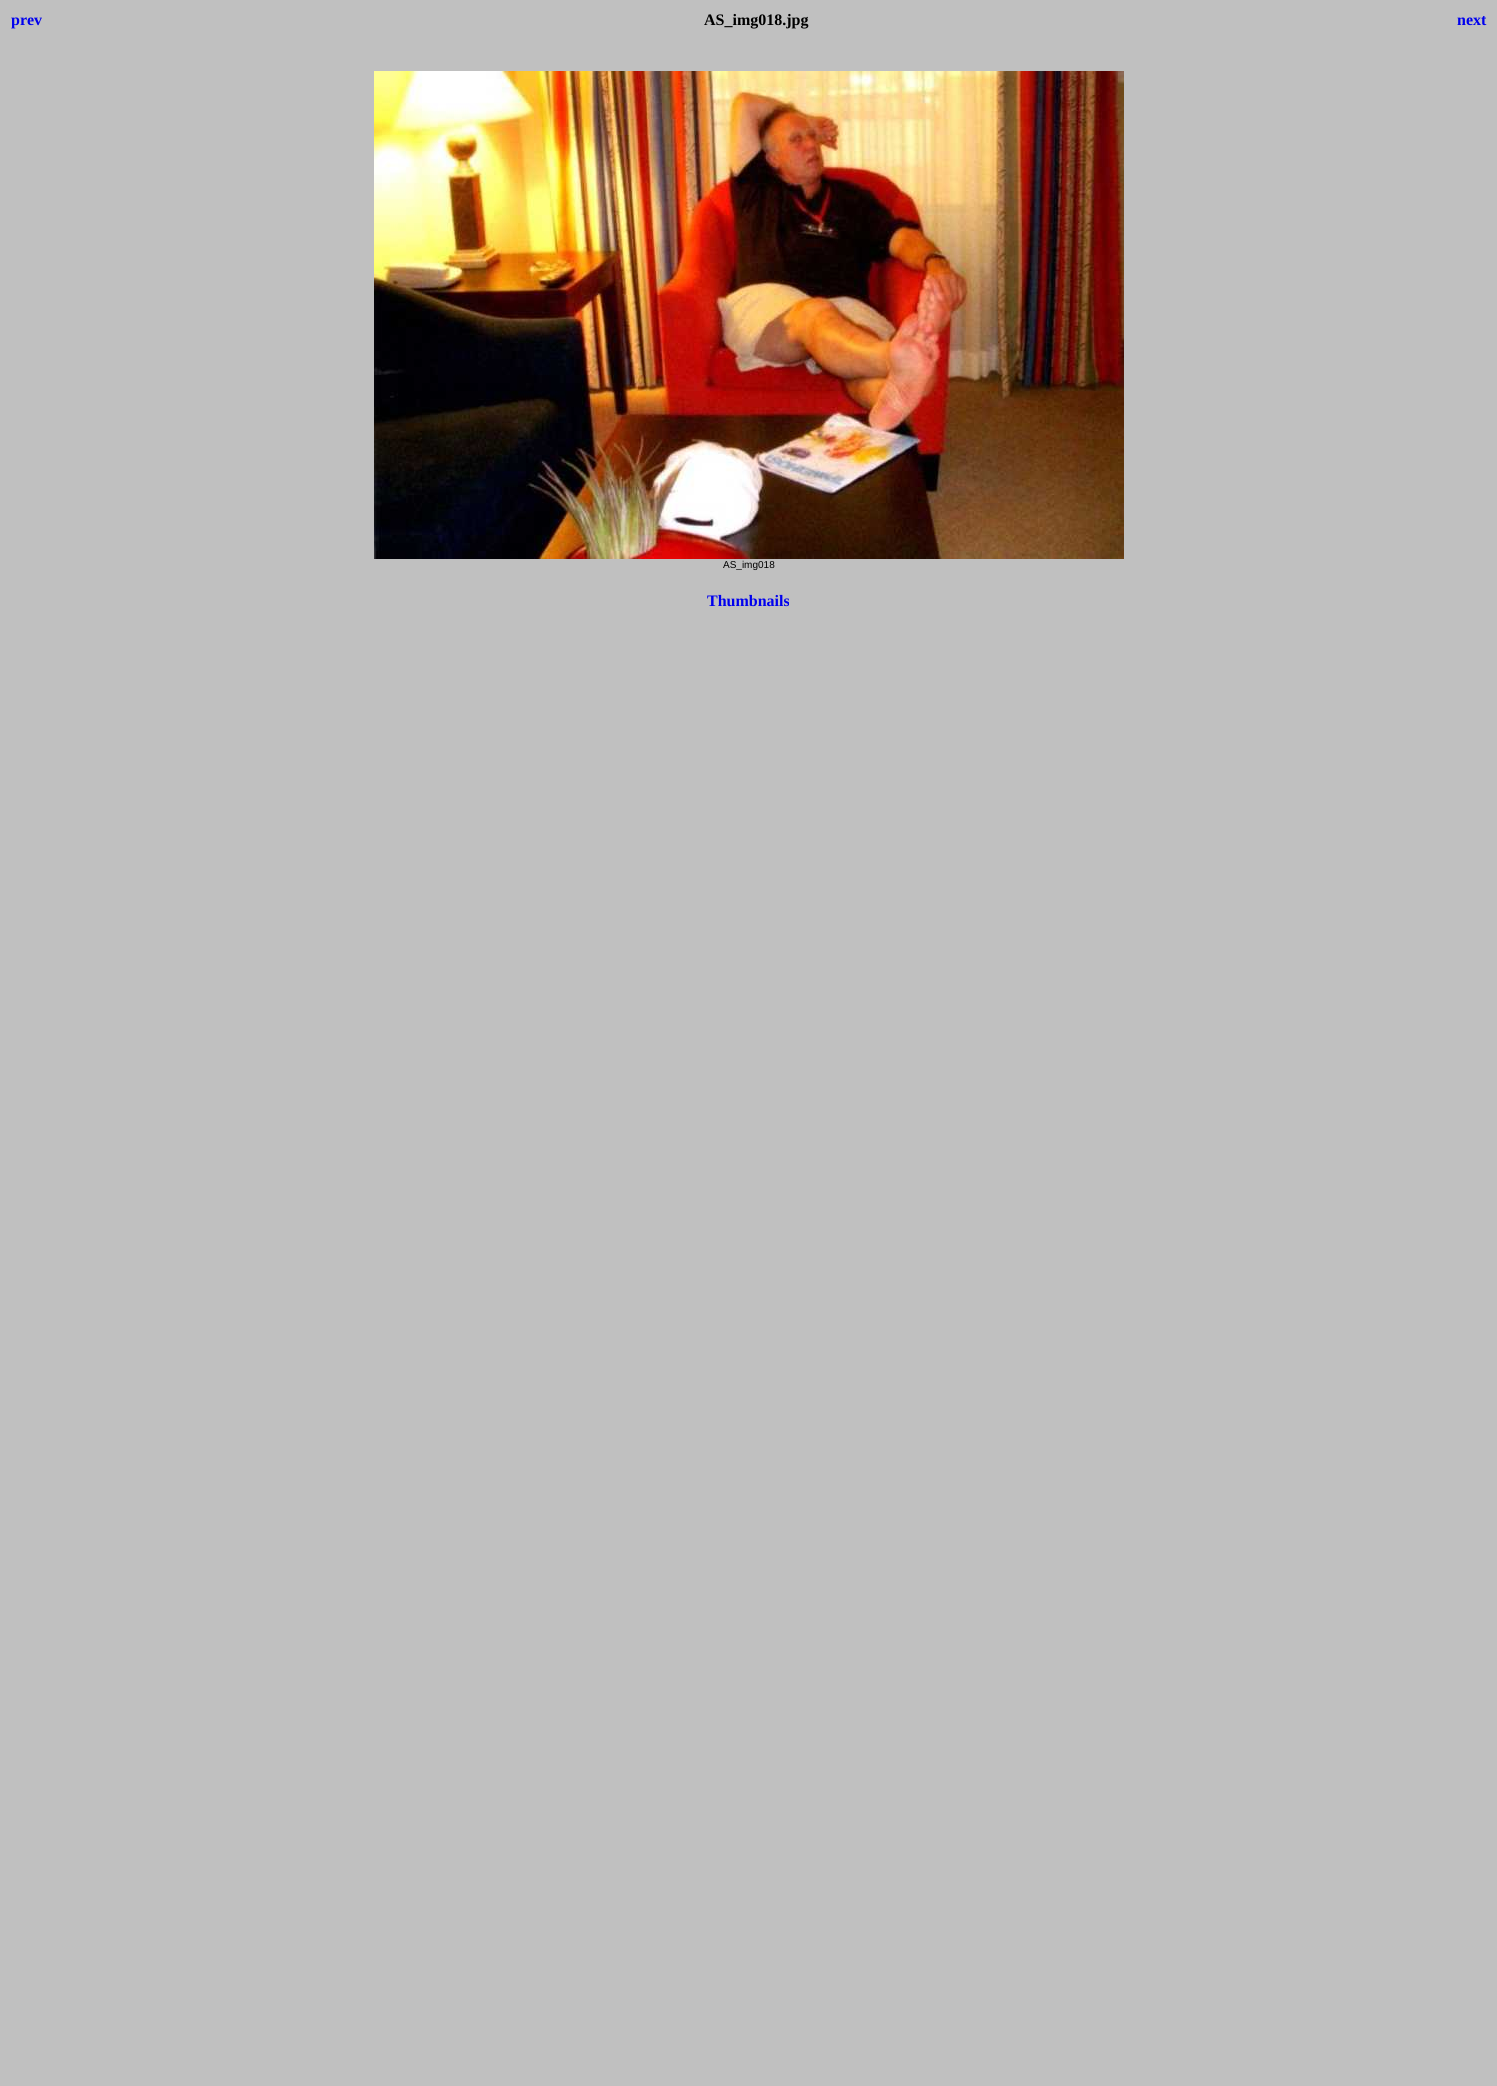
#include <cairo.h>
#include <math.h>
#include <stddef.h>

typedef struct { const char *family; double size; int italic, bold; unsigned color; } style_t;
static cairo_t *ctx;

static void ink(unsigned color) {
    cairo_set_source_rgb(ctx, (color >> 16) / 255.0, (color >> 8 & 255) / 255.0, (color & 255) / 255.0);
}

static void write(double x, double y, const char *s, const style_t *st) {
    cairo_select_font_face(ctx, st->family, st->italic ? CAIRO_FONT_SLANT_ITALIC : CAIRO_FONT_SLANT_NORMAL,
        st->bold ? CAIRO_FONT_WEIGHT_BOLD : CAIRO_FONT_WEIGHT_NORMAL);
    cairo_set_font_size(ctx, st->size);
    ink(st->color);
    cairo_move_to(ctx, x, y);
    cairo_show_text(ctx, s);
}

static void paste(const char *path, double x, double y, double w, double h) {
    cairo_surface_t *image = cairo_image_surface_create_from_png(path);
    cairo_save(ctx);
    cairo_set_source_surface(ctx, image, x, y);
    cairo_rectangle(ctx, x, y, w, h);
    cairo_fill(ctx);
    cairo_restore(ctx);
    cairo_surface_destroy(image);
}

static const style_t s1 = {"Liberation Serif", 16, 0, 1, 0x0000ee};
static const style_t s2 = {"Liberation Serif", 16, 0, 1, 0x000000};
static const style_t s3 = {"Liberation Sans", 10, 0, 0, 0x000000};

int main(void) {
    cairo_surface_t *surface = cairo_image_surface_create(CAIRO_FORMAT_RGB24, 1497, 2086);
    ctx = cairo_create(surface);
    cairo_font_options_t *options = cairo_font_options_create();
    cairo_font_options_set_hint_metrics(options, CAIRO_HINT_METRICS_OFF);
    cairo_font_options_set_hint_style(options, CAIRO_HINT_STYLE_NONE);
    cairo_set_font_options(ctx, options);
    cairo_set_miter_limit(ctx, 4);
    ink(0xc0c0c0);
    cairo_paint(ctx);
    write(11, 25, "prev", &s1);
    write(704, 25, "AS_img018.jpg", &s2);
    write(1457, 25, "next", &s1);
    paste("pic1.png", 374, 71, 750, 488);
    write(723, 568, "AS_img018", &s3);
    write(707, 606, "Thumbnails", &s1);
    cairo_surface_write_to_png(surface, "screenshot.png");
    cairo_font_options_destroy(options);
    cairo_destroy(ctx);
    cairo_surface_destroy(surface);
    return 0;
}
